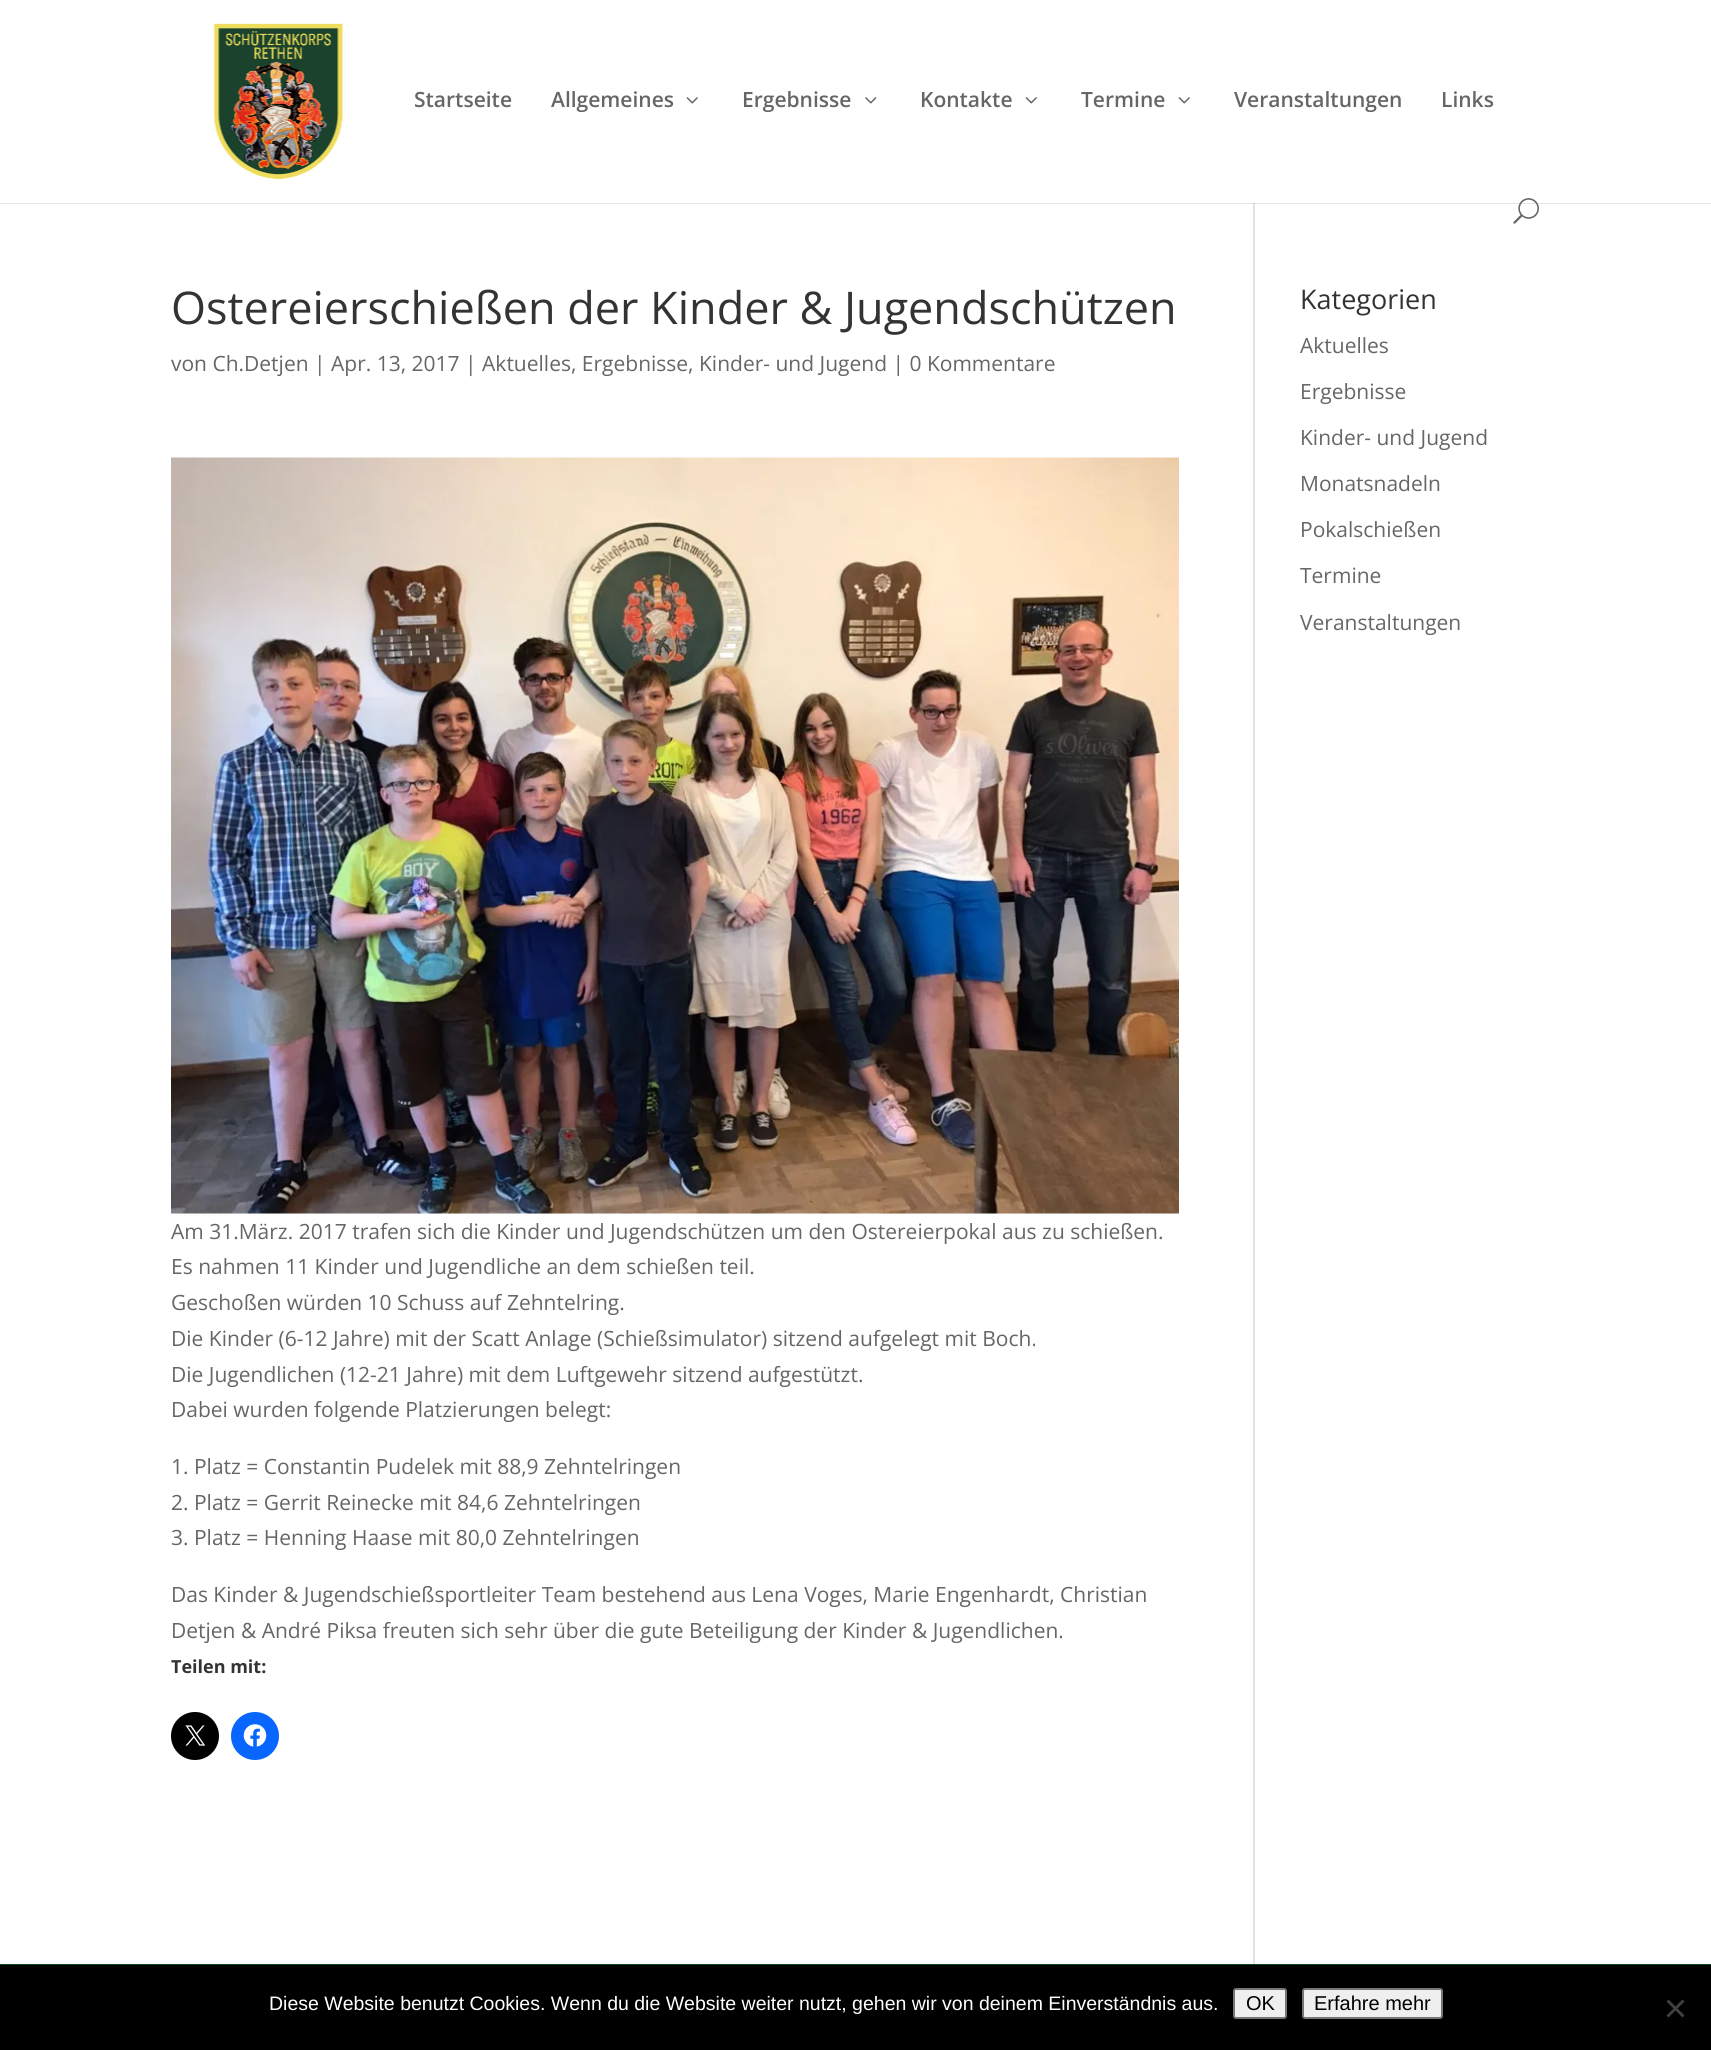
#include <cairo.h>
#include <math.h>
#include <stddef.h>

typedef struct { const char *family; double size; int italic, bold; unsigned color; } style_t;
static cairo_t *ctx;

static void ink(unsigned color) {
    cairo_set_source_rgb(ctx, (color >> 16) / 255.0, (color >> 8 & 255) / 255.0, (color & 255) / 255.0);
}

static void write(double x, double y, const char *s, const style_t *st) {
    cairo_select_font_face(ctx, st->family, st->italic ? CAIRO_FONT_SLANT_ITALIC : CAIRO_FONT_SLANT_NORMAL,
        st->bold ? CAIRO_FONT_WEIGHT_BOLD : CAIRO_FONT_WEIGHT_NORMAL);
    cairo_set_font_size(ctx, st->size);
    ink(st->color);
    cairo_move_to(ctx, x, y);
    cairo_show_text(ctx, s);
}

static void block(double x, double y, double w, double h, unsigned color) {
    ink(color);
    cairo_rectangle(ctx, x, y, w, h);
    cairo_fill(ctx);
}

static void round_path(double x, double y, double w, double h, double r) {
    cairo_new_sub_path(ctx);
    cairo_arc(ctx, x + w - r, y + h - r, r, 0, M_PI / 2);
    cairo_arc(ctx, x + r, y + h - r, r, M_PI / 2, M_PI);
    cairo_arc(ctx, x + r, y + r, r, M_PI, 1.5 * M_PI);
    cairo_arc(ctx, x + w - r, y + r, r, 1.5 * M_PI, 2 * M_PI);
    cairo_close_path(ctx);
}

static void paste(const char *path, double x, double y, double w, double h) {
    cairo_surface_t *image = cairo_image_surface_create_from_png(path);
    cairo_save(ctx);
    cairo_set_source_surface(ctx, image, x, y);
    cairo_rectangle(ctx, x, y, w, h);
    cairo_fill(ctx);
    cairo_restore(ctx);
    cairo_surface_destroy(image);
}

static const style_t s1 = {"Open Sans SemiBold", 21, 0, 0, 0x666666};
static const style_t s2 = {"Open Sans", 45, 0, 0, 0x333333};
static const style_t s3 = {"Open Sans", 21, 0, 0, 0x666666};
static const style_t s4 = {"Open Sans", 18, 0, 1, 0x333333};
static const style_t s5 = {"Open Sans", 27, 0, 0, 0x333333};
static const style_t s6 = {"Liberation Sans", 19.5, 0, 0, 0xffffff};
static const style_t s7 = {"Liberation Sans", 20, 0, 0, 0x000000};

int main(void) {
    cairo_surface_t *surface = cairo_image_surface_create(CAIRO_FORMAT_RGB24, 1711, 2050);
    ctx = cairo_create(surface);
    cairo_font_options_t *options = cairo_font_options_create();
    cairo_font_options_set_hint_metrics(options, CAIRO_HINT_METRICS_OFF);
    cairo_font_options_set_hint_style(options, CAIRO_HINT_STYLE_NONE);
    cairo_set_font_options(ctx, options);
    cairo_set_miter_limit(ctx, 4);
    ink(0xffffff);
    cairo_paint(ctx);
    block(1253, 198, 2, 1766, 0xe2e2e2);
    cairo_set_source_rgba(ctx, 0, 0, 0, 0.1);
    cairo_new_path(ctx);
    cairo_move_to(ctx, 0, 202);
    cairo_line_to(ctx, 0, 204);
    cairo_line_to(ctx, 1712, 204);
    cairo_line_to(ctx, 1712, 2);
    cairo_line_to(ctx, 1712, 202);
    cairo_close_path(ctx);
    cairo_fill(ctx);
    block(0, 198, 1711, 5, 0xffffff);
    paste("pic1.png", 213, 23, 130, 156);
    write(414, 107, "Startseite", &s1);
    write(551, 107, "Allgemeines", &s1);
    paste("pic2.png", 686, 97, 12, 7);
    write(742, 107, "Ergebnisse", &s1);
    paste("pic3.png", 865, 97, 12, 7);
    write(920, 107, "Kontakte", &s1);
    paste("pic2.png", 1025, 97, 12, 7);
    write(1081, 107, "Termine", &s1);
    paste("pic2.png", 1178, 97, 12, 7);
    write(1234, 107, "Veranstaltungen", &s1);
    write(1441, 107, "Links", &s1);
    paste("pic4.png", 1513, 198, 26, 26);
    write(171, 324, "Ostereierschießen der Kinder & Jugendschützen", &s2);
    write(171, 371, "von Ch.Detjen | Apr. 13, 2017 | Aktuelles, Ergebnisse, Kinder- und Jugend | 0 Kommentare", &s3);
    paste("pic5.png", 171, 457, 1008, 757);
    write(171, 1239, "Am 31.März. 2017 trafen sich die Kinder und Jugendschützen um den Ostereierpokal aus zu schießen.", &s3);
    write(171, 1274, "Es nahmen 11 Kinder und Jugendliche an dem schießen teil.", &s3);
    write(171, 1310, "Geschoßen würden 10 Schuss auf Zehntelring.", &s3);
    write(171, 1346, "Die Kinder (6-12 Jahre) mit der Scatt Anlage (Schießsimulator) sitzend aufgelegt mit Boch.", &s3);
    write(171, 1382, "Die Jugendlichen (12-21 Jahre) mit dem Luftgewehr sitzend aufgestützt.", &s3);
    write(171, 1417, "Dabei wurden folgende Platzierungen belegt:", &s3);
    write(171, 1474, "1. Platz = Constantin Pudelek mit 88,9 Zehntelringen", &s3);
    write(171, 1510, "2. Platz = Gerrit Reinecke mit 84,6 Zehntelringen", &s3);
    write(171, 1545, "3. Platz = Henning Haase mit 80,0 Zehntelringen", &s3);
    write(171, 1602, "Das Kinder & Jugendschießsportleiter Team bestehend aus Lena Voges, Marie Engenhardt, Christian", &s3);
    write(171, 1638, "Detjen & André Piksa freuten sich sehr über die gute Beteiligung der Kinder & Jugendlichen.", &s3);
    write(171, 1673, "Teilen mit:", &s4);
    ink(0x000000);
    cairo_new_path(ctx);
    cairo_arc(ctx, 195, 1736, 24, 0, 2 * M_PI);
    cairo_fill(ctx);
    paste("pic6.png", 185, 1725, 21, 21);
    ink(0x0866ff);
    cairo_arc(ctx, 255, 1736, 24, 0, 2 * M_PI);
    cairo_fill(ctx);
    paste("pic7.png", 243, 1724, 24, 23);
    write(1300, 309, "Kategorien", &s5);
    write(1300, 353, "Aktuelles", &s3);
    write(1300, 399, "Ergebnisse", &s3);
    write(1300, 445, "Kinder- und Jugend", &s3);
    write(1300, 491, "Monatsnadeln", &s3);
    write(1300, 537, "Pokalschießen", &s3);
    write(1300, 583, "Termine", &s3);
    write(1300, 630, "Veranstaltungen", &s3);
    block(0, 1964, 1711, 1, 0x0e4718);
    block(0, 1965, 1711, 85, 0x000000);
    write(269, 2010, "Diese Website benutzt Cookies. Wenn du die Website weiter nutzt, gehen wir von deinem Einverständnis aus.", &s6);
    ink(0xefefef);
    round_path(1234, 1989, 52, 29, 2);
    cairo_fill_preserve(ctx);
    ink(0x767676);
    cairo_stroke(ctx);
    write(1246, 2010, "OK", &s7);
    ink(0xefefef);
    round_path(1303, 1989, 139, 29, 2);
    cairo_fill_preserve(ctx);
    ink(0x767676);
    cairo_stroke(ctx);
    write(1314, 2010, "Erfahre mehr", &s7);
    ink(0x404040);
    cairo_new_path(ctx);
    cairo_move_to(ctx, 1682.5, 1999.5);
    cairo_line_to(ctx, 1684.5, 2001.5);
    cairo_line_to(ctx, 1668.5, 2017.5);
    cairo_line_to(ctx, 1666.5, 2015.5);
    cairo_close_path(ctx);
    cairo_fill(ctx);
    cairo_new_path(ctx);
    cairo_move_to(ctx, 1666.5, 2001.5);
    cairo_line_to(ctx, 1668.5, 1999.5);
    cairo_line_to(ctx, 1684.5, 2015.5);
    cairo_line_to(ctx, 1682.5, 2017.5);
    cairo_close_path(ctx);
    cairo_fill(ctx);
    cairo_surface_write_to_png(surface, "screenshot.png");
    cairo_font_options_destroy(options);
    cairo_destroy(ctx);
    cairo_surface_destroy(surface);
    return 0;
}
